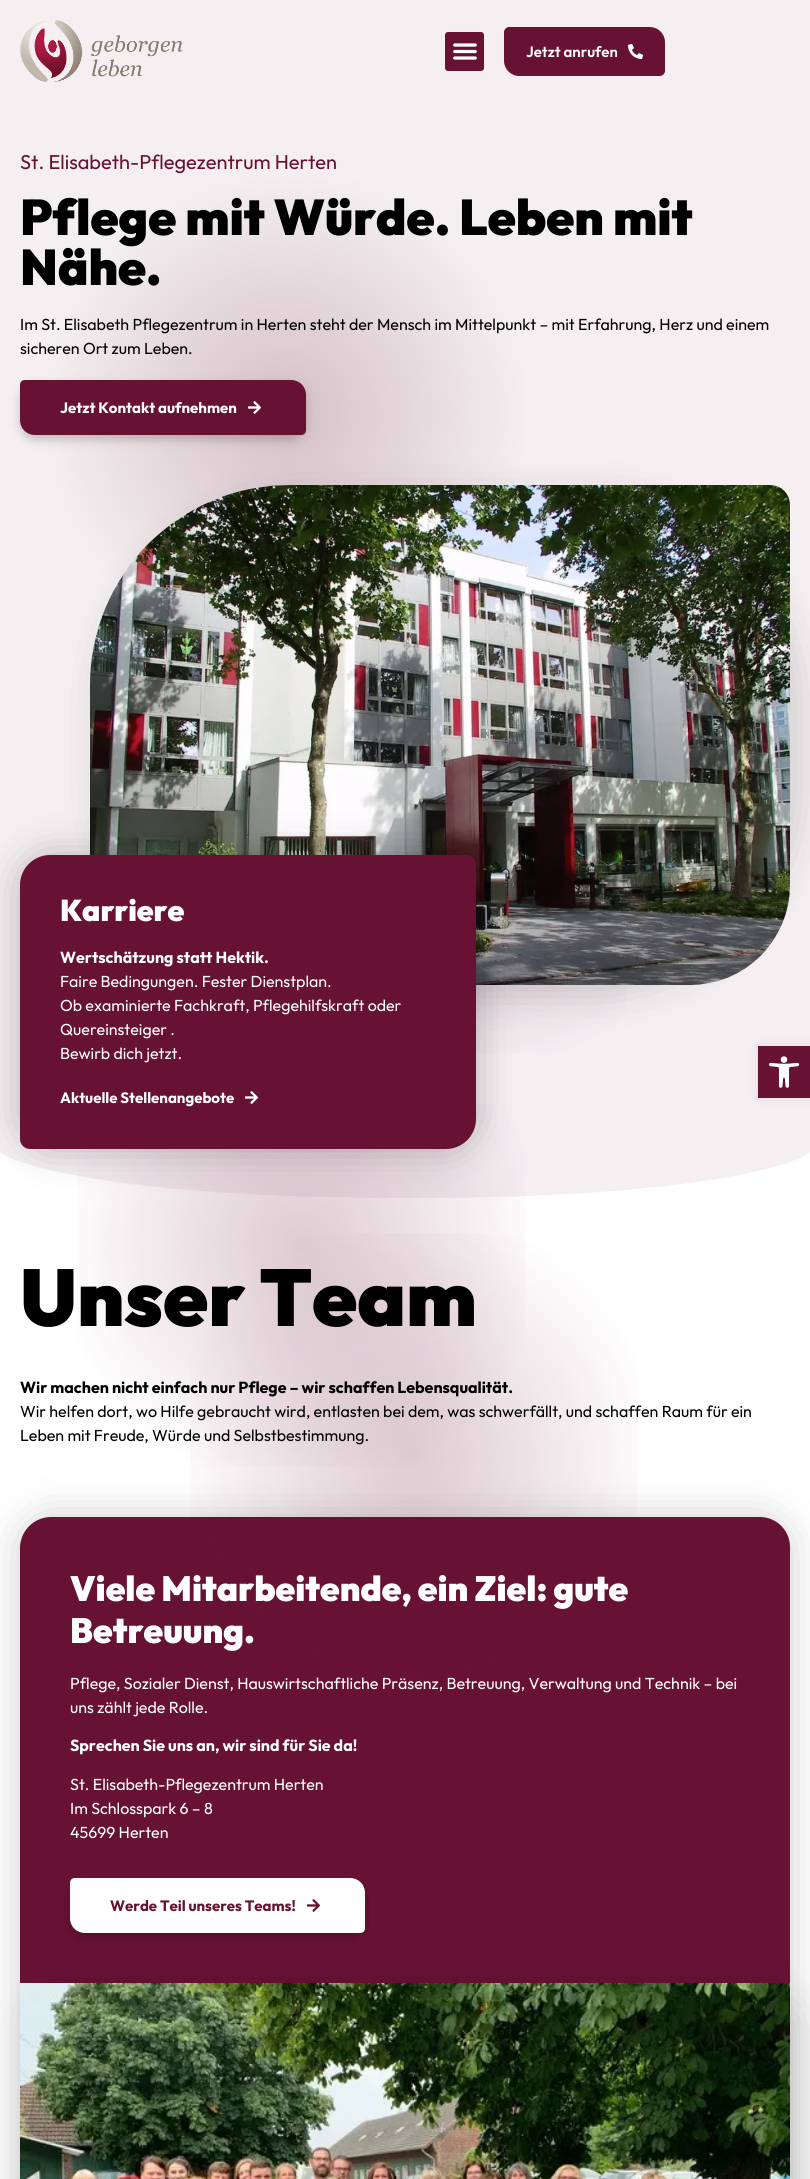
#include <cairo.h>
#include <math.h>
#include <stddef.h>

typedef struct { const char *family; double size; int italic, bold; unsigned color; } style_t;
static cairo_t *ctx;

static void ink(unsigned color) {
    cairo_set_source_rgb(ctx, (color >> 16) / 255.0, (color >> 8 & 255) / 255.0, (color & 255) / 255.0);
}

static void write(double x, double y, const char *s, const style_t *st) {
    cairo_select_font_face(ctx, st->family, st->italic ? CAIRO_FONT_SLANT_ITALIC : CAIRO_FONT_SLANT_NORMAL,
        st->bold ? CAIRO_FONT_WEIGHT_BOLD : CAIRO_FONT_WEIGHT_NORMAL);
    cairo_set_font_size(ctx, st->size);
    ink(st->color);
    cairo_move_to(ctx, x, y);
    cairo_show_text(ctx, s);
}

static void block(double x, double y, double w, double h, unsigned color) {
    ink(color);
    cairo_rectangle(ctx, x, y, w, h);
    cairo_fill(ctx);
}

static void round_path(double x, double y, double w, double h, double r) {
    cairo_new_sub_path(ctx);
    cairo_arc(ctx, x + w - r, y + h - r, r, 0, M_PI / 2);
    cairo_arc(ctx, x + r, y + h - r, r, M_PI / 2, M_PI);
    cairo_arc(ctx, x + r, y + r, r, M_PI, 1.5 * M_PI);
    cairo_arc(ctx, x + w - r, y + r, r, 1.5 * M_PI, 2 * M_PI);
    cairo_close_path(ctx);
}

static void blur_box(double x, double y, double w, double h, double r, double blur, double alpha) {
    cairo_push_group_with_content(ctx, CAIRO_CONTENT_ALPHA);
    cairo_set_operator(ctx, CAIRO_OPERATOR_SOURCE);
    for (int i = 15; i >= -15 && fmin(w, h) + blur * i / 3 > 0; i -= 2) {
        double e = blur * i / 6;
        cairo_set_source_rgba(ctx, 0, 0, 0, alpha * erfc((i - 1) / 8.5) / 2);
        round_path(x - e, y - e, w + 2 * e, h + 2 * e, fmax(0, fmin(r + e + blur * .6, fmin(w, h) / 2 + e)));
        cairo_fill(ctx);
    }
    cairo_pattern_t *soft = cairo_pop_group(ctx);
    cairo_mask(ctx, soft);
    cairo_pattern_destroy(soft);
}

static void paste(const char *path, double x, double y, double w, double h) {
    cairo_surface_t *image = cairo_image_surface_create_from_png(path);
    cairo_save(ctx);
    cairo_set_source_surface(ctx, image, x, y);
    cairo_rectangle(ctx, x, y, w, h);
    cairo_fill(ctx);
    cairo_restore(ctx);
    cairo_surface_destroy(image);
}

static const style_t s1 = {"Outfit SemiBold", 15, 0, 0, 0xffffff};
static const style_t s2 = {"Outfit", 20, 0, 0, 0x681233};
static const style_t s3 = {"Outfit Black", 50, 0, 0, 0x000000};
static const style_t s4 = {"Outfit", 16, 0, 0, 0x000000};
static const style_t s5 = {"Outfit", 15, 0, 1, 0xffffff};
static const style_t s6 = {"Outfit Black", 30, 0, 0, 0xffffff};
static const style_t s7 = {"Outfit", 16, 0, 1, 0xffffff};
static const style_t s8 = {"Outfit", 16, 0, 0, 0xffffff};
static const style_t s9 = {"Outfit Black", 80, 0, 0, 0x000000};
static const style_t s10 = {"Outfit", 16, 0, 1, 0x000000};
static const style_t s11 = {"Outfit Black", 35, 0, 0, 0xffffff};
static const style_t s12 = {"Outfit", 15, 0, 1, 0x681233};

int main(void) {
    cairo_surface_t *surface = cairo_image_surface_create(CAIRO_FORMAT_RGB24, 810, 2179);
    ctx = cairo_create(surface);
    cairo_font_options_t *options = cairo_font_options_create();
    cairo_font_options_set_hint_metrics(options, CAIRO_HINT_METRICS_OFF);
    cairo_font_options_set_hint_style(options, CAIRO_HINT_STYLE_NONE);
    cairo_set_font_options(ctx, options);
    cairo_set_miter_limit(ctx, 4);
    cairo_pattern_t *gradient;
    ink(0xffffff);
    cairo_paint(ctx);
    block(0, 0, 810, 102, 0xf5eff1);
    paste("pic1.png", 20, 20, 163, 62);
    ink(0x681233);
    round_path(445, 32, 39, 39, 3);
    cairo_fill(ctx);
    paste("pic2.png", 453, 43, 24, 17);
    cairo_new_path(ctx);
    cairo_move_to(ctx, 509, 28);
    cairo_line_to(ctx, 650, 28);
    cairo_curve_to(ctx, 657.5, 28, 664, 34.5, 664, 42);
    cairo_line_to(ctx, 664, 71);
    cairo_curve_to(ctx, 664, 73, 662, 75, 660, 75);
    cairo_line_to(ctx, 519, 75);
    cairo_curve_to(ctx, 511.5, 75, 505, 68.5, 505, 61);
    cairo_line_to(ctx, 505, 32);
    cairo_curve_to(ctx, 505, 30, 507, 28, 509, 28);
    cairo_close_path(ctx);
    cairo_fill_preserve(ctx);
    cairo_stroke(ctx);
    write(526, 57, "Jetzt anrufen", &s1);
    paste("pic3.png", 628, 44, 15, 15);
    block(0, 102, 810, 1096, 0xf5eff2);
    write(20, 169, "St. Elisabeth-Pflegezentrum Herten", &s2);
    gradient = cairo_pattern_create_radial(285, 413, 0, 285, 413, 354);
    cairo_pattern_add_color_stop_rgba(gradient, 0, 0.835, 0.749, 0.78, 1);
    cairo_pattern_add_color_stop_rgba(gradient, 0.7, 0.957, 0.941, 0.945, 1);
    cairo_set_source(ctx, gradient);
    cairo_pattern_destroy(gradient);
    cairo_rectangle(ctx, 46, 174, 478, 478);
    cairo_fill(ctx);
    write(20, 235, "Pflege mit Würde. Leben mit", &s3);
    write(20, 285, "Nähe.", &s3);
    write(20, 330, "Im St. Elisabeth Pflegezentrum in Herten steht der Mensch im Mittelpunkt – mit Erfahrung, Herz und einem", &s4);
    write(20, 354, "sicheren Ort zum Leben.", &s4);
    ink(0x000000);
    blur_box(20, 385, 286, 55, 15, 5, 0.2);
    ink(0x681233);
    cairo_new_path(ctx);
    cairo_move_to(ctx, 25, 380);
    cairo_line_to(ctx, 291, 380);
    cairo_curve_to(ctx, 299.5, 380, 306, 386.5, 306, 395);
    cairo_line_to(ctx, 306, 430);
    cairo_curve_to(ctx, 306, 433, 304, 435, 301, 435);
    cairo_line_to(ctx, 35, 435);
    cairo_curve_to(ctx, 26.5, 435, 20, 428.5, 20, 420);
    cairo_line_to(ctx, 20, 385);
    cairo_curve_to(ctx, 20, 382, 22, 380, 25, 380);
    cairo_close_path(ctx);
    cairo_fill(ctx);
    write(60, 413, "Jetzt Kontakt aufnehmen", &s5);
    paste("pic4.png", 247, 401, 14, 13);
    gradient = cairo_pattern_create_radial(466, 830, 0, 466, 830, 354);
    cairo_pattern_add_color_stop_rgba(gradient, 0, 0.408, 0.071, 0.2, 0.22);
    cairo_pattern_add_color_stop_rgba(gradient, 0.7, 0.408, 0.071, 0.2, 0);
    cairo_set_source(ctx, gradient);
    cairo_pattern_destroy(gradient);
    cairo_rectangle(ctx, 476, 985, 151, 68);
    cairo_fill(ctx);
    ink(0x000000);
    blur_box(100, 495, 700, 500, 200, 20, 0.15);
    paste("pic5.png", 90, 485, 700, 500);
    ink(0xffffff);
    cairo_new_path(ctx);
    cairo_move_to(ctx, 405, 1198);
    cairo_curve_to(ctx, 102, 1198, 0, 1160, -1, 1150);
    cairo_line_to(ctx, -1, 1200);
    cairo_line_to(ctx, 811, 1200);
    cairo_line_to(ctx, 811, 1150);
    cairo_curve_to(ctx, 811, 1160, 708, 1199, 405, 1198);
    cairo_close_path(ctx);
    cairo_fill(ctx);
    ink(0x000000);
    blur_box(20, 1517, 770, 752, 30, 20, 0.2);
    gradient = cairo_pattern_create_radial(301, 1243, 0, 301, 1243, 354);
    cairo_pattern_add_color_stop_rgba(gradient, 0, 0.408, 0.071, 0.2, 0.22);
    cairo_pattern_add_color_stop_rgba(gradient, 0.7, 0.408, 0.071, 0.2, 0);
    cairo_set_source(ctx, gradient);
    cairo_pattern_destroy(gradient);
    cairo_rectangle(ctx, 77, 1104, 448, 363);
    cairo_fill(ctx);
    ink(0x000000);
    blur_box(20, 855, 456, 294, 30, 20, 0.25);
    ink(0x681233);
    cairo_new_path(ctx);
    cairo_move_to(ctx, 50, 855);
    cairo_line_to(ctx, 466, 855);
    cairo_curve_to(ctx, 471.5, 855, 476, 859.5, 476, 865);
    cairo_line_to(ctx, 476, 1119);
    cairo_curve_to(ctx, 476, 1135.5, 462.5, 1149, 446, 1149);
    cairo_line_to(ctx, 30, 1149);
    cairo_curve_to(ctx, 24.5, 1149, 20, 1144.5, 20, 1139);
    cairo_line_to(ctx, 20, 885);
    cairo_curve_to(ctx, 20, 868.5, 33.5, 855, 50, 855);
    cairo_close_path(ctx);
    cairo_fill(ctx);
    write(60, 921, "Karriere", &s6);
    write(60, 963, "Wertschätzung statt Hektik.", &s7);
    write(60, 987, "Faire Bedingungen. Fester Dienstplan.", &s8);
    write(60, 1011, "Ob examinierte Fachkraft, Pflegehilfskraft oder", &s8);
    write(60, 1035, "Quereinsteiger .", &s8);
    write(60, 1059, "Bewirb dich jetzt.", &s8);
    write(60, 1103, "Aktuelle Stellenangebote", &s5);
    paste("pic4.png", 244, 1091, 14, 13);
    ink(0x681233);
    cairo_new_path(ctx);
    cairo_move_to(ctx, 51, 1517);
    cairo_line_to(ctx, 760, 1517);
    cairo_curve_to(ctx, 776.5, 1517, 790, 1530.5, 790, 1547);
    cairo_line_to(ctx, 790, 1983);
    cairo_line_to(ctx, 20, 1983);
    cairo_line_to(ctx, 20, 1548);
    cairo_curve_to(ctx, 20, 1531, 34, 1517, 51, 1517);
    cairo_close_path(ctx);
    cairo_fill(ctx);
    gradient = cairo_pattern_create_radial(414, 1457, 0, 414, 1457, 354);
    cairo_pattern_add_color_stop_rgba(gradient, 0, 0.408, 0.071, 0.2, 0.22);
    cairo_pattern_add_color_stop_rgba(gradient, 0.7, 0.408, 0.071, 0.2, 0);
    cairo_set_source(ctx, gradient);
    cairo_pattern_destroy(gradient);
    cairo_rectangle(ctx, 190, 1233, 448, 448);
    cairo_fill(ctx);
    write(20, 1326, "Unser Team", &s9);
    write(20, 1393, "Wir machen nicht einfach nur Pflege – wir schaffen Lebensqualität.", &s10);
    write(20, 1417, "Wir helfen dort, wo Hilfe gebraucht wird, entlasten bei dem, was schwerfällt, und schaffen Raum für ein", &s4);
    write(20, 1441, "Leben mit Freude, Würde und Selbstbestimmung.", &s4);
    write(70, 1601, "Viele Mitarbeitende, ein Ziel: gute", &s11);
    write(70, 1643, "Betreuung.", &s11);
    write(70, 1689, "Pflege, Sozialer Dienst, Hauswirtschaftliche Präsenz, Betreuung, Verwaltung und Technik – bei", &s8);
    write(70, 1713, "uns zählt jede Rolle.", &s8);
    write(70, 1751, "Sprechen Sie uns an, wir sind für Sie da!", &s7);
    write(70, 1790, "St. Elisabeth-Pflegezentrum Herten", &s8);
    write(70, 1814, "Im Schlosspark 6 – 8", &s8);
    write(70, 1838, "45699 Herten", &s8);
    ink(0x000000);
    blur_box(70, 1883, 295, 55, 15, 5, 0.2);
    ink(0xffffff);
    cairo_new_path(ctx);
    cairo_move_to(ctx, 75, 1878);
    cairo_line_to(ctx, 350, 1878);
    cairo_curve_to(ctx, 358.5, 1878, 365, 1884.5, 365, 1893);
    cairo_line_to(ctx, 365, 1928);
    cairo_curve_to(ctx, 365, 1931, 363, 1933, 360, 1933);
    cairo_line_to(ctx, 85, 1933);
    cairo_curve_to(ctx, 76.5, 1933, 70, 1926.5, 70, 1918);
    cairo_line_to(ctx, 70, 1883);
    cairo_curve_to(ctx, 70, 1880, 72, 1878, 75, 1878);
    cairo_close_path(ctx);
    cairo_fill(ctx);
    write(110, 1911, "Werde Teil unseres Teams!", &s12);
    paste("pic6.png", 306, 1899, 14, 13);
    ink(0x000000);
    blur_box(30, 1993, 770, 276, 30, 20, 0.15);
    paste("pic7.png", 20, 1983, 770, 196);
    blur_box(758, 1046, 52, 52, 0, 5, 0.1);
    block(758, 1046, 52, 52, 0x681233);
    paste("pic8.png", 769, 1056, 30, 32);
    cairo_surface_write_to_png(surface, "screenshot.png");
    cairo_font_options_destroy(options);
    cairo_destroy(ctx);
    cairo_surface_destroy(surface);
    return 0;
}
